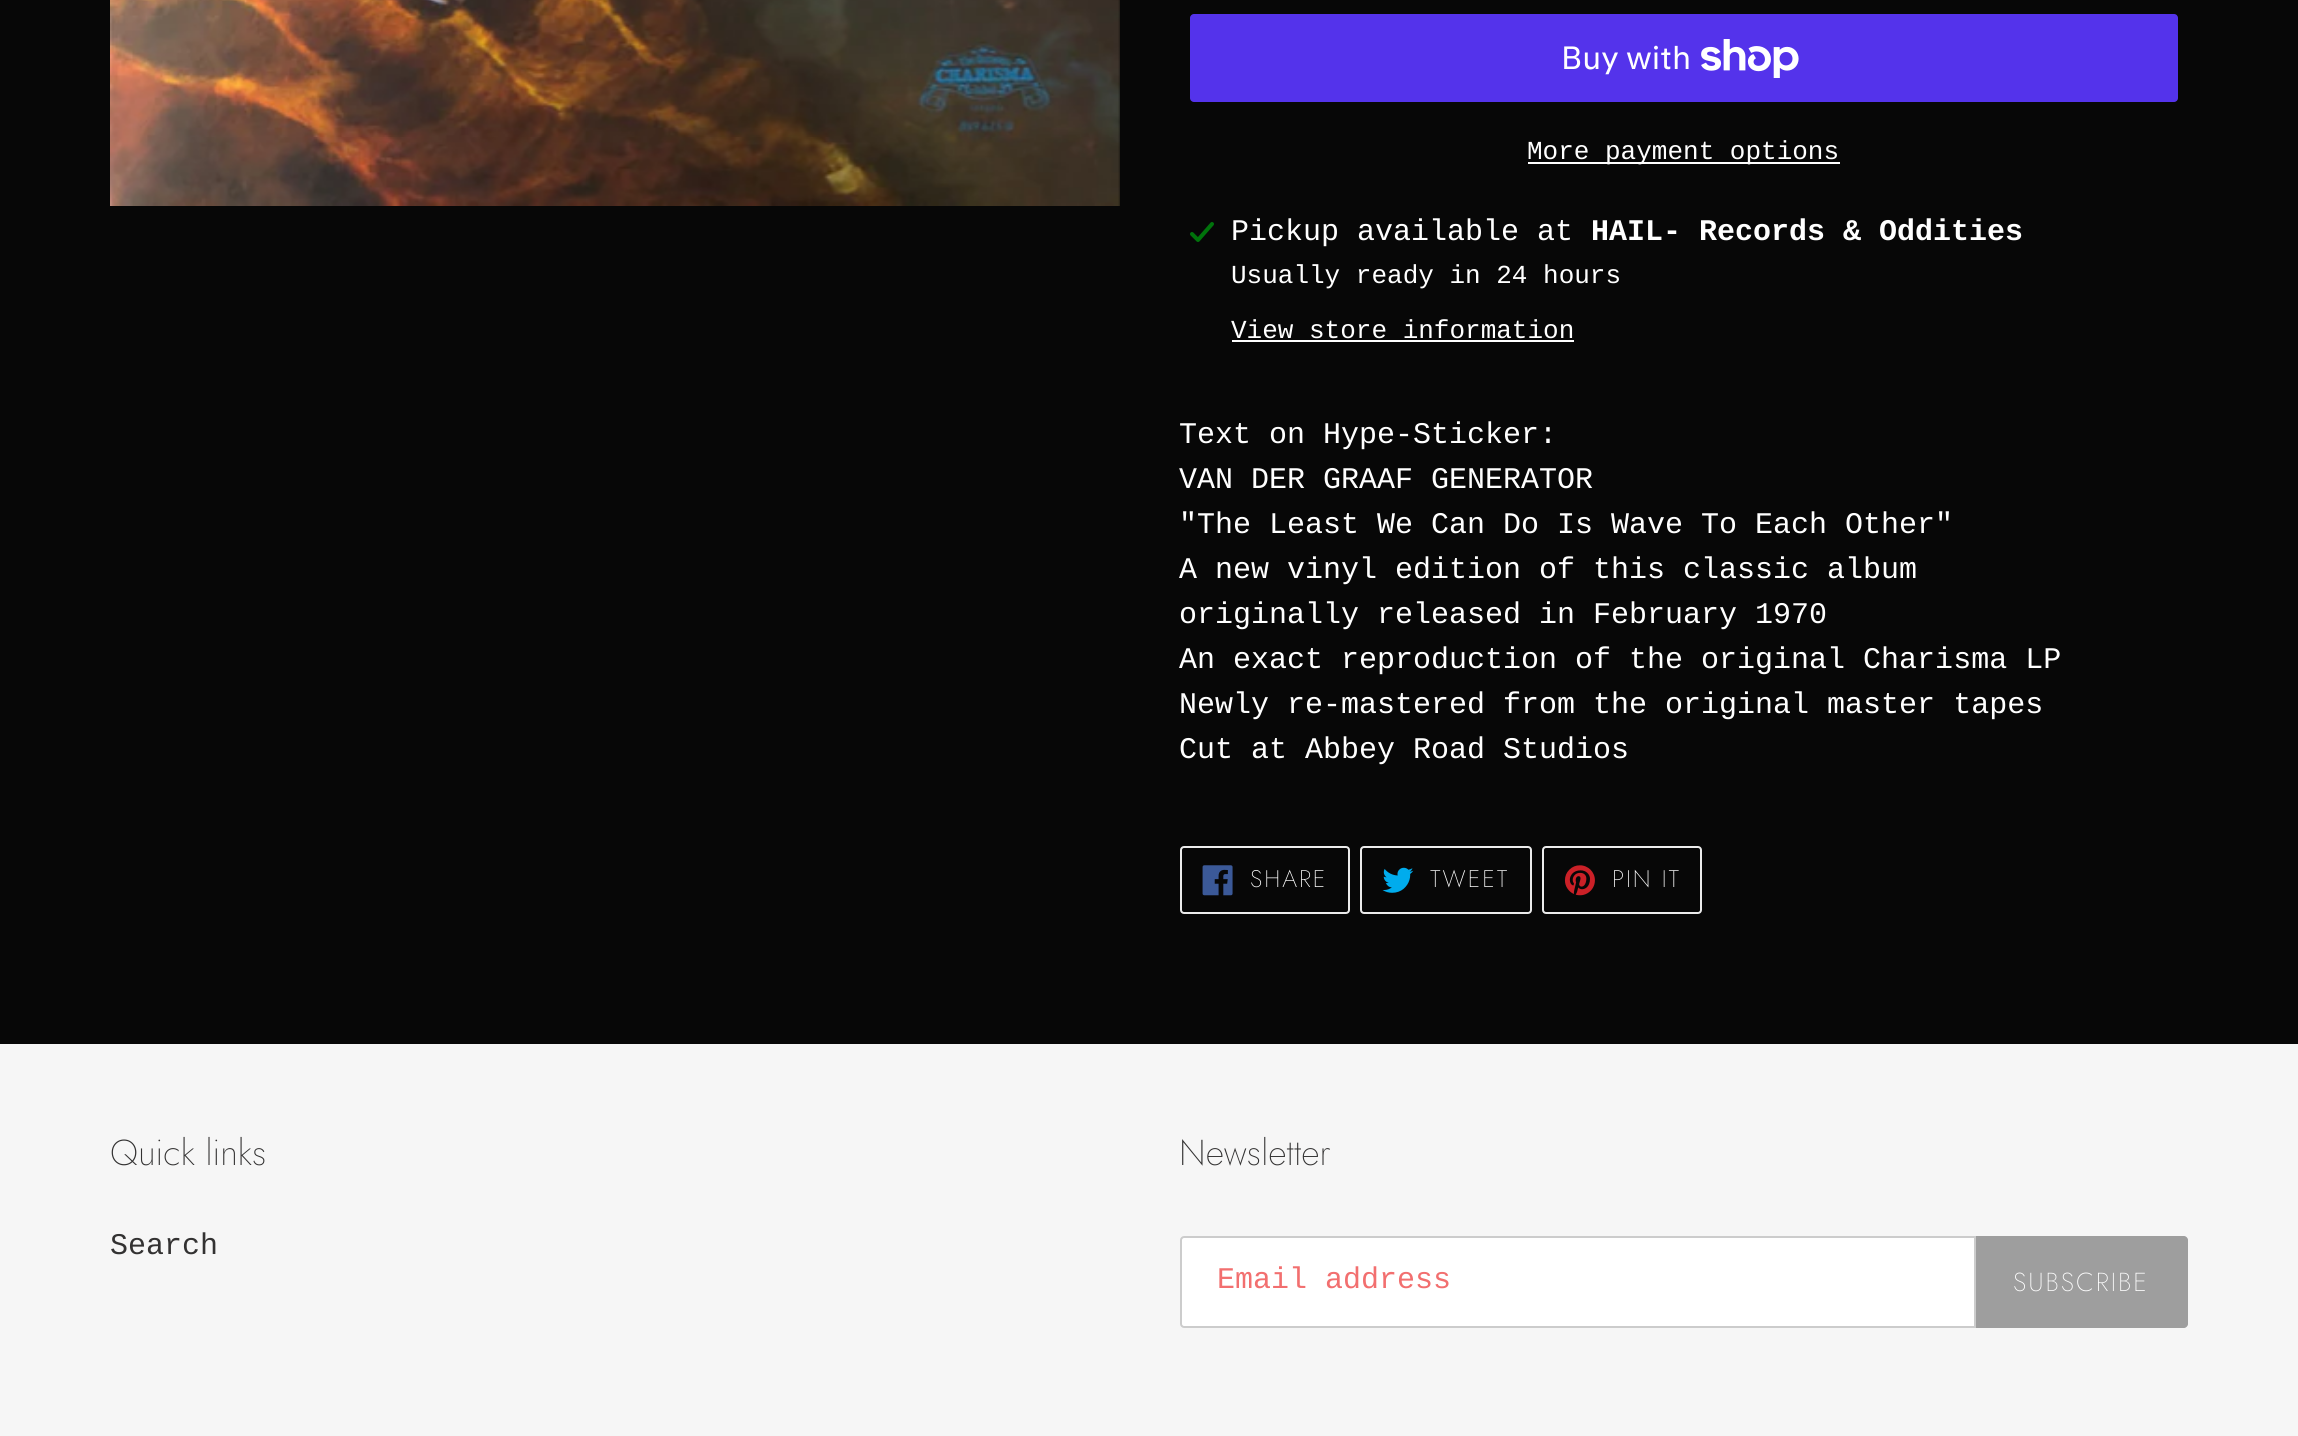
#include <cairo.h>
#include <math.h>
#include <stddef.h>

typedef struct { const char *family; double size; int italic, bold; unsigned color; } style_t;
static cairo_t *ctx;

static void ink(unsigned color) {
    cairo_set_source_rgb(ctx, (color >> 16) / 255.0, (color >> 8 & 255) / 255.0, (color & 255) / 255.0);
}

static void write(double x, double y, const char *s, const style_t *st) {
    cairo_select_font_face(ctx, st->family, st->italic ? CAIRO_FONT_SLANT_ITALIC : CAIRO_FONT_SLANT_NORMAL,
        st->bold ? CAIRO_FONT_WEIGHT_BOLD : CAIRO_FONT_WEIGHT_NORMAL);
    cairo_set_font_size(ctx, st->size);
    ink(st->color);
    cairo_move_to(ctx, x, y);
    cairo_show_text(ctx, s);
}

static void write_spaced(double x, double y, const char *s, double letter, double word) {
    cairo_move_to(ctx, x, y);
    while (*s) {
        char ch[5] = {0};
        int n = 0;
        do ch[n++] = *s++; while ((*s & 0xC0) == 0x80);
        cairo_show_text(ctx, ch);
        cairo_rel_move_to(ctx, letter + word * (*ch == ' '), 0);
    }
}

static void block(double x, double y, double w, double h, unsigned color) {
    ink(color);
    cairo_rectangle(ctx, x, y, w, h);
    cairo_fill(ctx);
}

static void round_path(double x, double y, double w, double h, double r) {
    cairo_new_sub_path(ctx);
    cairo_arc(ctx, x + w - r, y + h - r, r, 0, M_PI / 2);
    cairo_arc(ctx, x + r, y + h - r, r, M_PI / 2, M_PI);
    cairo_arc(ctx, x + r, y + r, r, M_PI, 1.5 * M_PI);
    cairo_arc(ctx, x + w - r, y + r, r, 1.5 * M_PI, 2 * M_PI);
    cairo_close_path(ctx);
}

static void paste(const char *path, double x, double y, double w, double h) {
    cairo_surface_t *image = cairo_image_surface_create_from_png(path);
    cairo_save(ctx);
    cairo_set_source_surface(ctx, image, x, y);
    cairo_rectangle(ctx, x, y, w, h);
    cairo_fill(ctx);
    cairo_restore(ctx);
    cairo_surface_destroy(image);
}

static const style_t s1 = {"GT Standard", 32, 0, 0, 0xffffff};
static const style_t s2 = {"Liberation Mono", 26, 0, 0, 0xffffff};
static const style_t s3 = {"Liberation Mono", 30, 0, 0, 0xffffff};
static const style_t s4 = {"Liberation Mono", 30, 0, 1, 0xffffff};
static const style_t s5 = {"Jost ExtraLight", 36, 0, 0, 0x333232};
static const style_t s6 = {"Liberation Mono", 30, 0, 0, 0x333232};
static const style_t s7 = {"Liberation Mono", 30, 0, 0, 0xf26f6f};

int main(void) {
    cairo_surface_t *surface = cairo_image_surface_create(CAIRO_FORMAT_RGB24, 2298, 1436);
    ctx = cairo_create(surface);
    cairo_font_options_t *options = cairo_font_options_create();
    cairo_font_options_set_hint_metrics(options, CAIRO_HINT_METRICS_OFF);
    cairo_font_options_set_hint_style(options, CAIRO_HINT_STYLE_NONE);
    cairo_set_font_options(ctx, options);
    cairo_set_miter_limit(ctx, 4);
    ink(0x070707);
    cairo_paint(ctx);
    paste("pic1.png", 110, 0, 1010, 206);
    ink(0x5433eb);
    round_path(1190, 14, 988, 88, 4);
    cairo_fill(ctx);
    write(1561, 69, "Buy with", &s1);
    paste("pic2.png", 1701, 39, 98, 39);
    block(1528, 162, 312, 2, 0xffffff);
    write(1527, 159, "More payment options", &s2);
    paste("pic3.png", 1190, 222, 24, 20);
    write(1231, 240, "Pickup available at", &s3);
    write(1591, 240, "HAIL- Records & Oddities", &s4);
    write(1231, 283, "Usually ready in 24 hours", &s2);
    write(1231, 338, "View store information", &s2);
    block(1232, 340, 342, 2, 0xffffff);
    write(1179, 443, "Text on Hype-Sticker:", &s3);
    write(1179, 488, "VAN DER GRAAF GENERATOR", &s3);
    write(1179, 533, "\"The Least We Can Do Is Wave To Each Other\"", &s3);
    write(1179, 578, "A new vinyl edition of this classic album", &s3);
    write(1179, 623, "originally released in February 1970", &s3);
    write(1179, 668, "An exact reproduction of the original Charisma LP", &s3);
    write(1179, 713, "Newly re-mastered from the original master tapes", &s3);
    write(1179, 758, "Cut at Abbey Road Studios", &s3);
    round_path(1181, 847, 168, 66, 3);
    ink(0xebebeb);
    cairo_stroke(ctx);
    paste("pic4.png", 1202, 865, 31, 31);
    cairo_select_font_face(ctx, "Jost ExtraLight", CAIRO_FONT_SLANT_NORMAL, CAIRO_FONT_WEIGHT_NORMAL);
    cairo_set_font_size(ctx, 24);
    ink(0xffffff);
    write_spaced(1250, 887, "SHARE", 2, 0);
    round_path(1361, 847, 170, 66, 3);
    ink(0xebebeb);
    cairo_stroke(ctx);
    paste("pic5.png", 1382, 867, 32, 26);
    ink(0xffffff);
    write_spaced(1430, 887, "TWEET", 2, 0);
    round_path(1543, 847, 158, 66, 3);
    ink(0xebebeb);
    cairo_stroke(ctx);
    paste("pic6.png", 1564, 865, 31, 31);
    ink(0xffffff);
    write_spaced(1612, 887, "PIN IT", 2, 0);
    block(0, 1044, 2298, 392, 0xf6f6f6);
    write(110, 1165, "Quick links", &s5);
    write(110, 1254, "Search", &s6);
    write(1179, 1165, "Newsletter", &s5);
    ink(0xffffff);
    cairo_new_path(ctx);
    cairo_move_to(ctx, 1184, 1237);
    cairo_line_to(ctx, 1975, 1237);
    cairo_line_to(ctx, 1975, 1327);
    cairo_line_to(ctx, 1184, 1327);
    cairo_curve_to(ctx, 1182.5, 1327, 1181, 1325.5, 1181, 1324);
    cairo_line_to(ctx, 1181, 1240);
    cairo_curve_to(ctx, 1181, 1238.5, 1182.5, 1237, 1184, 1237);
    cairo_close_path(ctx);
    cairo_fill_preserve(ctx);
    ink(0xcccccc);
    cairo_stroke(ctx);
    write(1217, 1288, "Email address", &s7);
    ink(0x9e9e9e);
    cairo_new_path(ctx);
    cairo_move_to(ctx, 1976, 1236);
    cairo_line_to(ctx, 2184, 1236);
    cairo_curve_to(ctx, 2186, 1236, 2188, 1238, 2188, 1240);
    cairo_line_to(ctx, 2188, 1324);
    cairo_curve_to(ctx, 2188, 1326, 2186, 1328, 2184, 1328);
    cairo_line_to(ctx, 1976, 1328);
    cairo_close_path(ctx);
    cairo_fill(ctx);
    cairo_select_font_face(ctx, "Jost ExtraLight", CAIRO_FONT_SLANT_NORMAL, CAIRO_FONT_WEIGHT_NORMAL);
    cairo_set_font_size(ctx, 26);
    ink(0xffffff);
    write_spaced(2013, 1291, "SUBSCRIBE", 2, 0);
    cairo_surface_write_to_png(surface, "screenshot.png");
    cairo_font_options_destroy(options);
    cairo_destroy(ctx);
    cairo_surface_destroy(surface);
    return 0;
}
